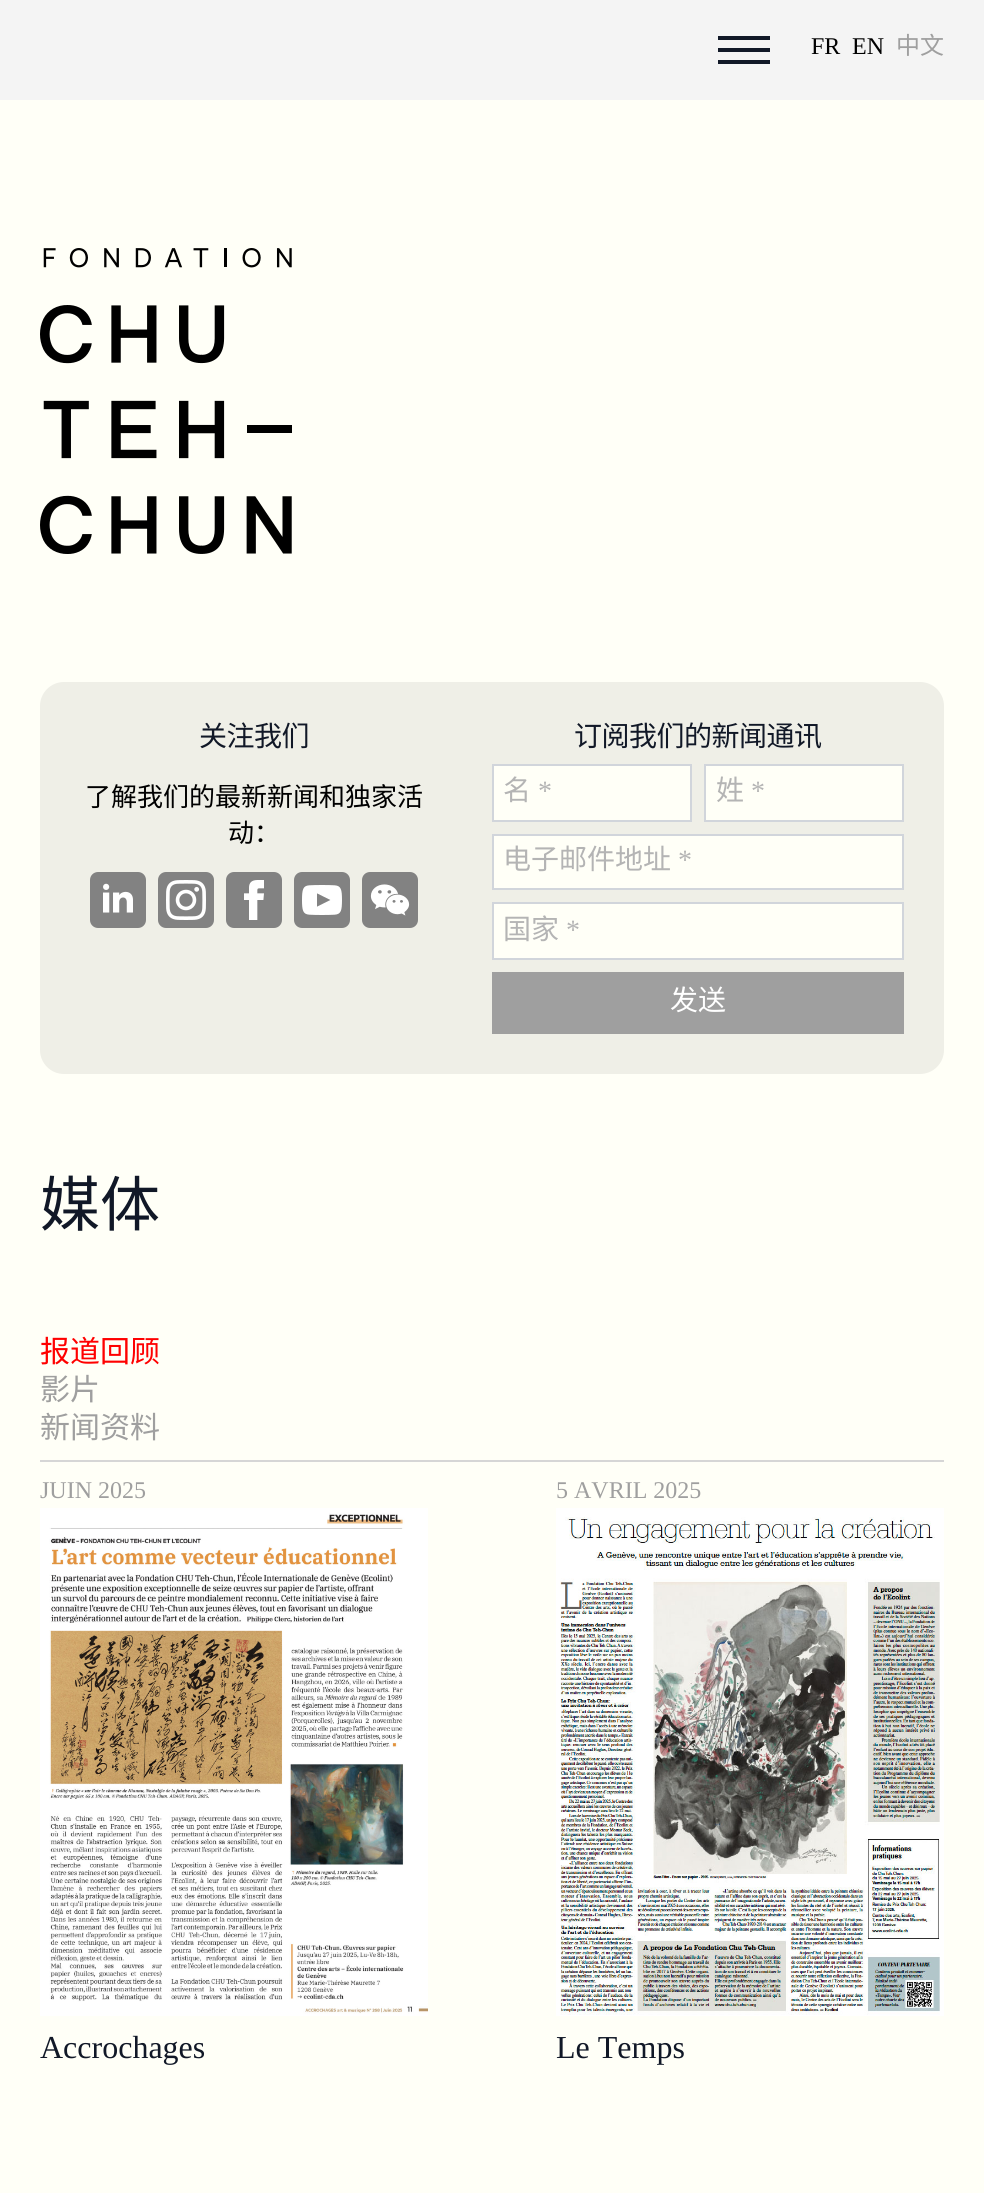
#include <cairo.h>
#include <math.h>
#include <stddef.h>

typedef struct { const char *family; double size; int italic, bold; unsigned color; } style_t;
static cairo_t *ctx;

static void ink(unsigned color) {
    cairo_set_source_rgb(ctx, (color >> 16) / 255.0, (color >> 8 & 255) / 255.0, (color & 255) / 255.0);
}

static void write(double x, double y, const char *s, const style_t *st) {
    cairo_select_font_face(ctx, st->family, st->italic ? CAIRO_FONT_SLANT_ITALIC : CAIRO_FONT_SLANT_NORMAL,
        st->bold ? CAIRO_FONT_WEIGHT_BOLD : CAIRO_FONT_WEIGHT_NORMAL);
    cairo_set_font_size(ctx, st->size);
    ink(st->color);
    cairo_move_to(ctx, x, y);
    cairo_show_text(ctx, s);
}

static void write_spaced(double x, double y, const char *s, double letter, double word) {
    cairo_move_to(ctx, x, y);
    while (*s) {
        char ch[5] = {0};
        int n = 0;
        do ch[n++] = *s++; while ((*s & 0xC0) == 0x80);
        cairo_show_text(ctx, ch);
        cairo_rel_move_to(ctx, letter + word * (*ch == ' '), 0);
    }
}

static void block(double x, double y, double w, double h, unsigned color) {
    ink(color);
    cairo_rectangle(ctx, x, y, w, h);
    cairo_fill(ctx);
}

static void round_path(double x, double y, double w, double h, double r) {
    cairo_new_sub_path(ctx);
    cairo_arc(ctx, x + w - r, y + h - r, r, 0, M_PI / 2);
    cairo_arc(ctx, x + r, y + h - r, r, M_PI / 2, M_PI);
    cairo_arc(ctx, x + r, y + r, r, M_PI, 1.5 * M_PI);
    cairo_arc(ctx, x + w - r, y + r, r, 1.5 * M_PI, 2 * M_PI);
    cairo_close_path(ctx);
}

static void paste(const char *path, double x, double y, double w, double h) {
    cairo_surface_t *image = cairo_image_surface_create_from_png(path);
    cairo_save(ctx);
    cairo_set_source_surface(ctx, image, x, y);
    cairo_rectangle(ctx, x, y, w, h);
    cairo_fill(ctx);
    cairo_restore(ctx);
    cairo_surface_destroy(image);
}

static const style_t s1 = {"Liberation Serif", 24, 0, 0, 0x000000};
static const style_t s2 = {"Noto Sans CJK SC", 24, 0, 0, 0x9f9f9f};
static const style_t s3 = {"Noto Sans CJK SC", 26, 0, 0, 0x000000};
static const style_t s4 = {"Noto Sans CJK SC", 28, 0, 0, 0xb4b4b4};
static const style_t s5 = {"Liberation Serif", 28, 0, 0, 0xb4b4b4};
static const style_t s6 = {"Noto Sans CJK SC", 28, 0, 0, 0xffffff};
static const style_t s7 = {"Noto Sans CJK SC", 60, 0, 0, 0x111827};
static const style_t s8 = {"Noto Sans CJK SC", 30, 0, 0, 0xff0000};
static const style_t s9 = {"Noto Sans CJK SC", 30, 0, 0, 0x9f9f9f};
static const style_t s10 = {"Liberation Serif", 24, 0, 0, 0x9f9f9f};
static const style_t s11 = {"Liberation Serif", 32, 0, 0, 0x111827};

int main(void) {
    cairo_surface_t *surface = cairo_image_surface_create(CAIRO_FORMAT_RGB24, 984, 2193);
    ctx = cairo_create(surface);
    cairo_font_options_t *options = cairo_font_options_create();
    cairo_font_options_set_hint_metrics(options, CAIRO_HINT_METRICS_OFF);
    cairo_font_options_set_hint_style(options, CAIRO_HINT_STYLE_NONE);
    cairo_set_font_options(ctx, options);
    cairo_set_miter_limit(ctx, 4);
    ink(0xfffff7);
    cairo_paint(ctx);
    block(0, 0, 984, 100, 0xf4f4f4);
    block(718, 48, 52, 4, 0x111827);
    block(718, 36, 52, 4, 0x111827);
    block(718, 60, 52, 4, 0x111827);
    write(811, 54, "FR", &s1);
    write(852, 54, "EN", &s1);
    write(896, 54, "中文", &s2);
    paste("pic1.png", 40, 248, 252, 306);
    ink(0xefefe7);
    round_path(40, 682, 904, 392, 24);
    cairo_fill(ctx);
    cairo_set_font_size(ctx, 28);
    ink(0x111827);
    write_spaced(199, 746, "关注我们", -0.5, 0);
    write(85, 806, "了解我们的最新新闻和独家活", &s3);
    write(228, 842, "动：", &s3);
    ink(0x828282);
    round_path(90, 872, 56, 56, 8);
    cairo_fill(ctx);
    paste("pic2.png", 103, 883, 30, 30);
    round_path(158, 872, 56, 56, 8);
    cairo_fill(ctx);
    paste("pic3.png", 166, 880, 40, 40);
    round_path(226, 872, 56, 56, 8);
    cairo_fill(ctx);
    paste("pic4.png", 244, 880, 20, 40);
    round_path(294, 872, 56, 56, 8);
    cairo_fill(ctx);
    paste("pic5.png", 302, 885, 40, 30);
    round_path(362, 872, 56, 56, 8);
    cairo_fill(ctx);
    paste("pic6.png", 370, 884, 40, 32);
    cairo_set_font_size(ctx, 28);
    ink(0x111827);
    write_spaced(574, 746, "订阅我们的新闻通讯", -0.5, 0);
    ink(0xfffff7);
    cairo_rectangle(ctx, 493, 765, 198, 56);
    cairo_fill_preserve(ctx);
    ink(0xd1d5db);
    cairo_stroke(ctx);
    write(503, 800, "名", &s4);
    write(538, 800, "*", &s5);
    ink(0xfffff7);
    cairo_rectangle(ctx, 705, 765, 198, 56);
    cairo_fill_preserve(ctx);
    ink(0xd1d5db);
    cairo_stroke(ctx);
    write(716, 800, "姓", &s4);
    write(751, 800, "*", &s5);
    ink(0xfffff7);
    cairo_rectangle(ctx, 493, 835, 410, 54);
    cairo_fill_preserve(ctx);
    ink(0xd1d5db);
    cairo_stroke(ctx);
    write(503, 869, "电子邮件地址", &s4);
    write(678, 869, "*", &s5);
    ink(0xfffff7);
    cairo_rectangle(ctx, 493, 903, 410, 56);
    cairo_fill_preserve(ctx);
    ink(0xd1d5db);
    cairo_stroke(ctx);
    write(503, 939, "国家", &s4);
    write(566, 939, "*", &s5);
    block(492, 972, 412, 62, 0x9f9f9f);
    write(670, 1010, "发送", &s6);
    write(40, 1226, "媒体", &s7);
    write(40, 1362, "报道回顾", &s8);
    write(40, 1400, "影片", &s9);
    write(40, 1438, "新闻资料", &s9);
    block(40, 1460, 904, 2, 0xd6d6d6);
    write(40, 1498, "JUIN 2025", &s10);
    paste("pic7.png", 40, 1508, 388, 508);
    write(40, 2058, "Accrochages", &s11);
    write(556, 1498, "5 AVRIL 2025", &s10);
    paste("pic8.png", 556, 1508, 388, 508);
    write(556, 2058, "Le Temps", &s11);
    cairo_surface_write_to_png(surface, "screenshot.png");
    cairo_font_options_destroy(options);
    cairo_destroy(ctx);
    cairo_surface_destroy(surface);
    return 0;
}
